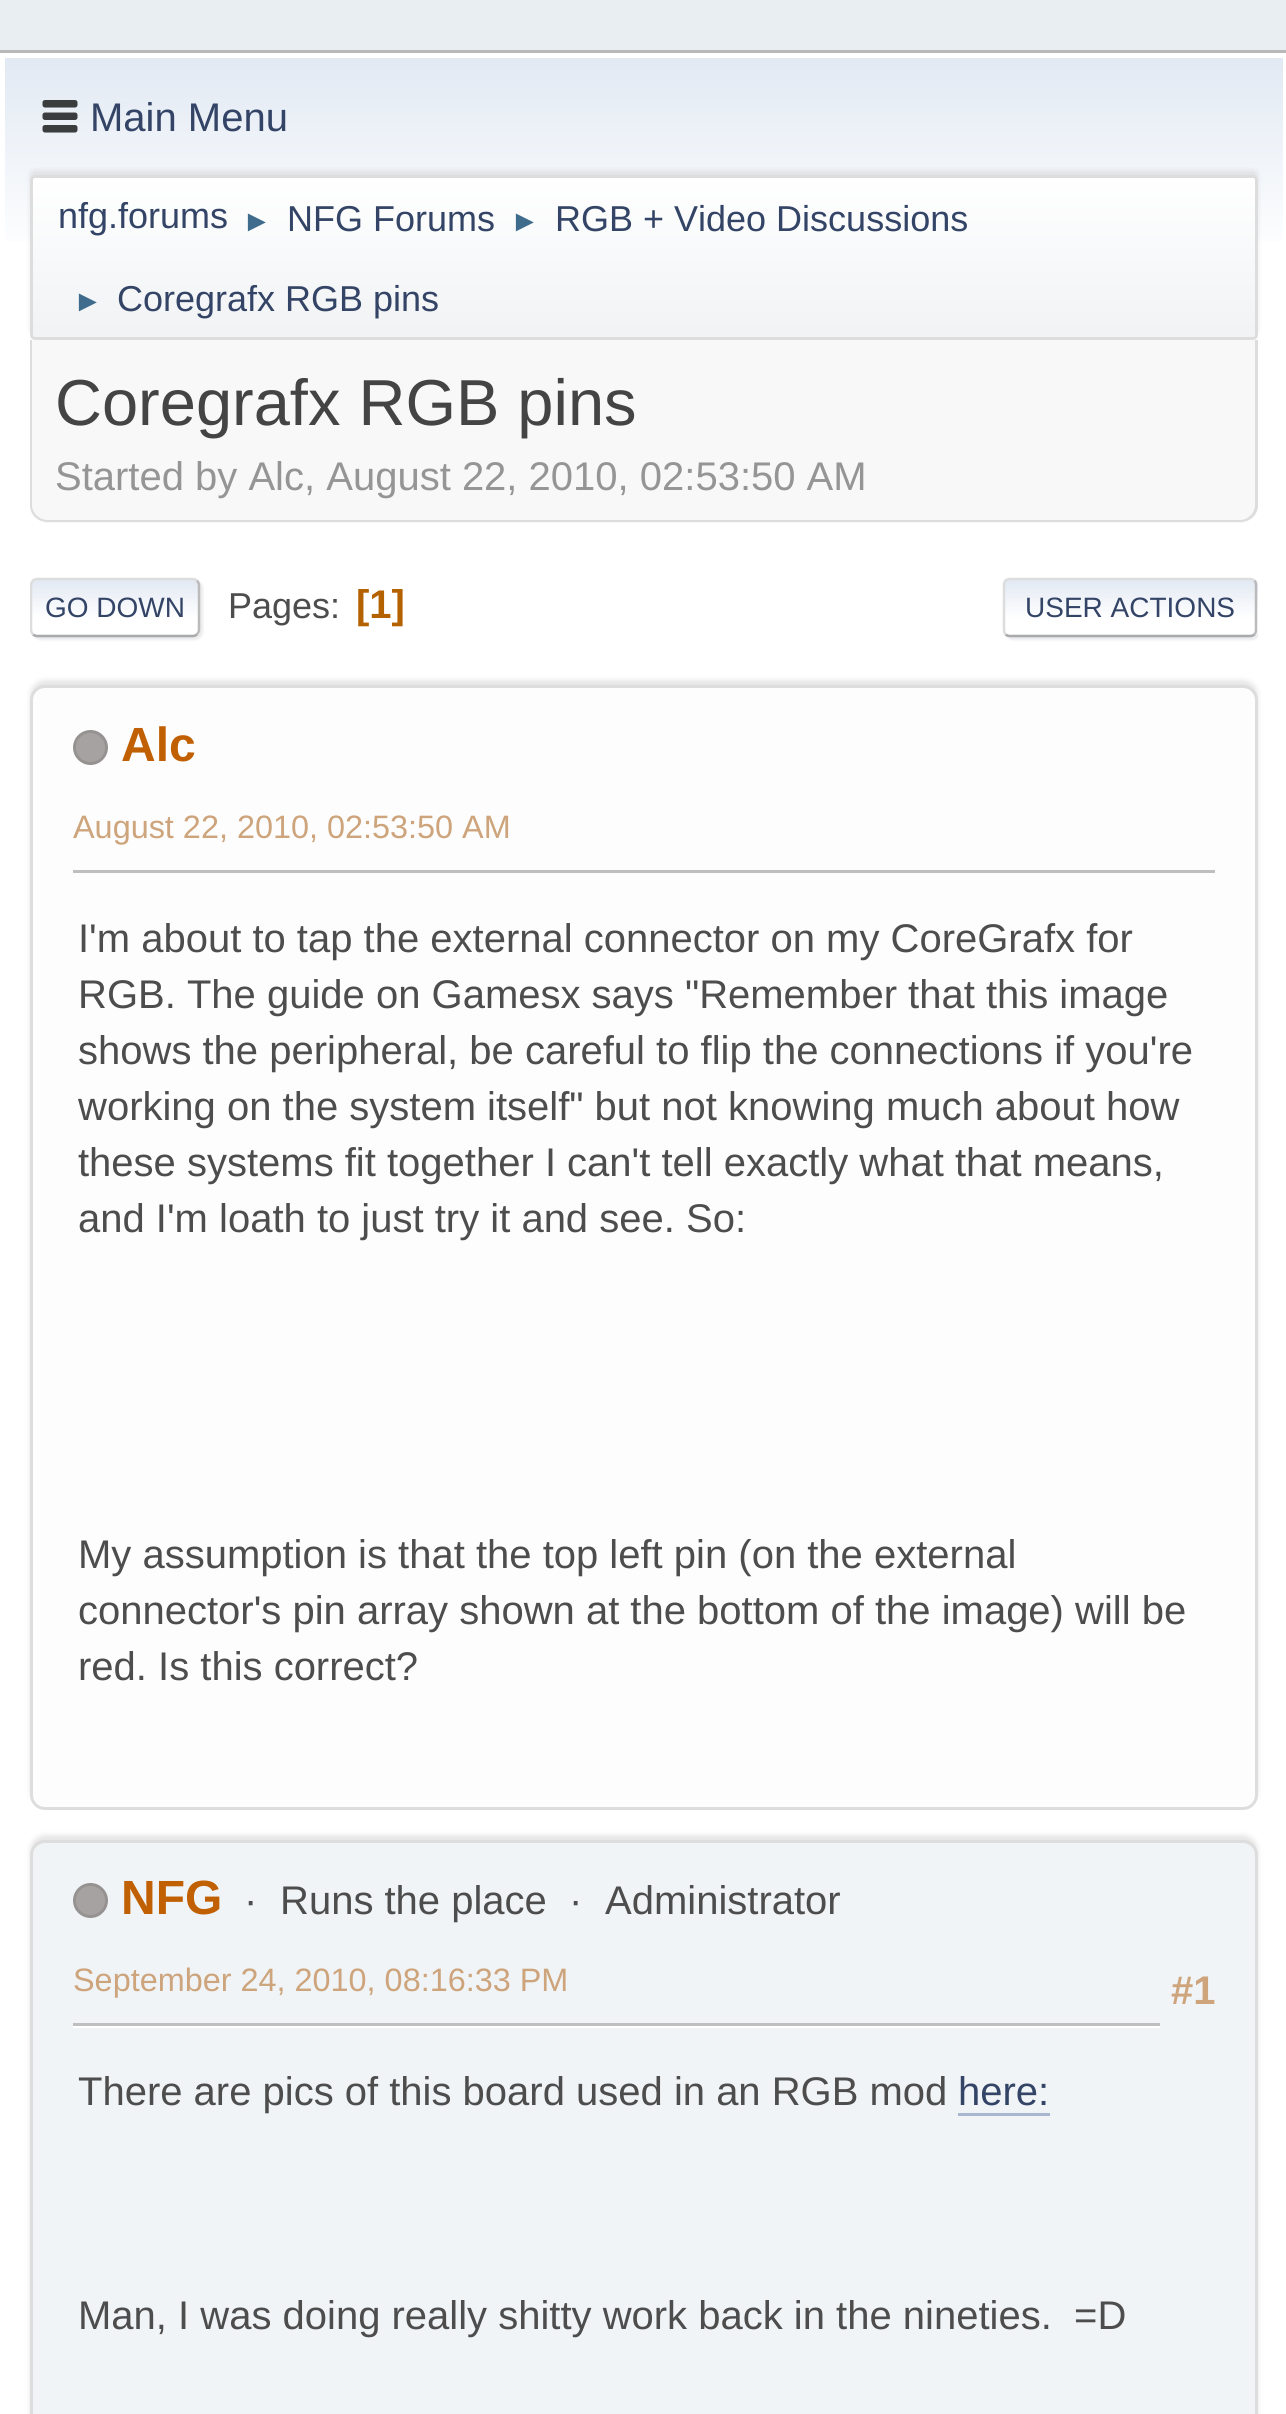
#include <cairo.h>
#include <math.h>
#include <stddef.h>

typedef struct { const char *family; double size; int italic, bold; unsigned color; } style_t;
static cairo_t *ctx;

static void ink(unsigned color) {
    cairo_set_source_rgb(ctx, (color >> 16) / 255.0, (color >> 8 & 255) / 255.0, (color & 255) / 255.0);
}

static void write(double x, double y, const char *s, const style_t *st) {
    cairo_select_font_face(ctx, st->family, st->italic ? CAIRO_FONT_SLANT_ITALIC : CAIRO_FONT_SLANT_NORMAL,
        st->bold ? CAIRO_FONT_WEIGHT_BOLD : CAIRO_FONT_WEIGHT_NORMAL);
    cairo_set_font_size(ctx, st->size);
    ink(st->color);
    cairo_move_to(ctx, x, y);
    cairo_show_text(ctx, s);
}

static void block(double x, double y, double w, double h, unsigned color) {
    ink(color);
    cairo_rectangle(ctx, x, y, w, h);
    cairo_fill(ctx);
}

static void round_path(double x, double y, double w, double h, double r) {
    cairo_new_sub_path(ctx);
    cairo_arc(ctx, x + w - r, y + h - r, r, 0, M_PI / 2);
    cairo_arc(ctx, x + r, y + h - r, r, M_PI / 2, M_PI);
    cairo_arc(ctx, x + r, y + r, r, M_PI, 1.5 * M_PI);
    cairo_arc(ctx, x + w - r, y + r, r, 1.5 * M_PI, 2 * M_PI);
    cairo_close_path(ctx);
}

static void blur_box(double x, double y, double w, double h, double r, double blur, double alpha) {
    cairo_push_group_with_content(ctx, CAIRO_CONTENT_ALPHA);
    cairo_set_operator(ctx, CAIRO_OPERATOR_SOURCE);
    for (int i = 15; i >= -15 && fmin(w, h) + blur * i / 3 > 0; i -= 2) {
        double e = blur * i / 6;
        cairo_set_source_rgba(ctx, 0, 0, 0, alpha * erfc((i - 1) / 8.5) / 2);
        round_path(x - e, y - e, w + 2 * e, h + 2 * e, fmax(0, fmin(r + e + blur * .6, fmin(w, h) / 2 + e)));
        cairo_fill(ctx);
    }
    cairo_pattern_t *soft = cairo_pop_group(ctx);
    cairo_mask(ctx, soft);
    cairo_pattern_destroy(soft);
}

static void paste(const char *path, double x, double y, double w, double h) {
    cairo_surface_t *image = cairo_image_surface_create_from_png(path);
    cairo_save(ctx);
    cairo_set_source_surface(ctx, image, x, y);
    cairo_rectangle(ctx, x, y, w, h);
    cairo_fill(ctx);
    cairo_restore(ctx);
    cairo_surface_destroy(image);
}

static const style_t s1 = {"Liberation Sans", 40, 0, 0, 0x334466};
static const style_t s2 = {"Liberation Sans", 36, 0, 0, 0x334466};
static const style_t s3 = {"Liberation Sans", 30, 0, 0, 0x3f6b8c};
static const style_t s4 = {"Liberation Sans", 65, 0, 0, 0x444444};
static const style_t s5 = {"Liberation Sans", 40, 0, 0, 0x959595};
static const style_t s6 = {"Liberation Sans", 28, 0, 0, 0x334466};
static const style_t s7 = {"Liberation Sans", 36, 0, 0, 0x4d4d4d};
static const style_t s8 = {"Liberation Sans", 40, 0, 1, 0xb46100};
static const style_t s9 = {"Liberation Sans", 48, 0, 1, 0xc06002};
static const style_t s10 = {"Liberation Sans", 32.4, 0, 0, 0xcda47b};
static const style_t s11 = {"Liberation Sans", 40, 0, 0, 0x4d4d4d};
static const style_t s12 = {"Liberation Sans", 40, 0, 1, 0xcda47b};

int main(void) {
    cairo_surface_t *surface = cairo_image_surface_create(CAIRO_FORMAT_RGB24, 1286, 2414);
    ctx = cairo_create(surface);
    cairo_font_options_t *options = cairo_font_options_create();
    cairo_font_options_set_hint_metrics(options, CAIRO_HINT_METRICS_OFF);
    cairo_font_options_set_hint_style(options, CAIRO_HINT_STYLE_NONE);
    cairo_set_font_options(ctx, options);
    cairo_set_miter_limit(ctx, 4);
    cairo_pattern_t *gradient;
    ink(0xe9eef2);
    cairo_paint(ctx);
    block(0, 53, 1286, 2361, 0xffffff);
    block(0, 50, 1286, 3, 0xb8b8b8);
    gradient = cairo_pattern_create_linear(644, 57, 644, 345);
    cairo_pattern_add_color_stop_rgba(gradient, 0, 0.886, 0.914, 0.953, 1);
    cairo_pattern_add_color_stop_rgba(gradient, 0.7, 1, 1, 1, 1);
    cairo_set_source(ctx, gradient);
    cairo_pattern_destroy(gradient);
    cairo_rectangle(ctx, 5, 58, 1278, 183);
    cairo_fill(ctx);
    paste("pic1.png", 42, 100, 36, 33);
    write(90, 131, "Main Menu", &s1);
    ink(0x000000);
    blur_box(30, 170, 1228, 165, 5, 2.5, 0.08);
    cairo_save(ctx);
    round_path(30, 175, 1228, 165, 5);
    cairo_clip(ctx);
    gradient = cairo_pattern_create_linear(644, 177, 644, 338);
    cairo_pattern_add_color_stop_rgba(gradient, 0, 1, 1, 1, 1);
    cairo_pattern_add_color_stop_rgba(gradient, 0.95, 0.945, 0.953, 0.961, 1);
    cairo_set_source(ctx, gradient);
    cairo_pattern_destroy(gradient);
    cairo_rectangle(ctx, 30, 178, 1228, 160);
    cairo_fill(ctx);
    cairo_restore(ctx);
    round_path(31.5, 176.5, 1225, 162, 3.5);
    ink(0xdddddd);
    cairo_set_line_width(ctx, 3);
    cairo_stroke(ctx);
    write(58, 228, "nfg.forums", &s2);
    write(242, 231, "►", &s3);
    write(287, 231, "NFG Forums", &s2);
    write(510, 231, "►", &s3);
    write(555, 231, "RGB + Video Discussions", &s2);
    write(73, 311, "►", &s3);
    write(117, 311, "Coregrafx RGB pins", &s2);
    ink(0xf8f8f8);
    cairo_new_path(ctx);
    cairo_move_to(ctx, 30, 340);
    cairo_line_to(ctx, 1258, 340);
    cairo_line_to(ctx, 1258, 505);
    cairo_curve_to(ctx, 1258, 515, 1250, 523, 1240, 523);
    cairo_line_to(ctx, 48, 523);
    cairo_curve_to(ctx, 38, 523, 30, 515, 30, 505);
    cairo_close_path(ctx);
    cairo_fill(ctx);
    ink(0xdddddd);
    cairo_set_fill_rule(ctx, CAIRO_FILL_RULE_EVEN_ODD);
    cairo_new_path(ctx);
    cairo_move_to(ctx, 30, 340);
    cairo_line_to(ctx, 1258, 340);
    cairo_line_to(ctx, 1258, 505);
    cairo_curve_to(ctx, 1258, 515, 1250, 522, 1240, 522);
    cairo_line_to(ctx, 48, 522);
    cairo_curve_to(ctx, 38, 522, 30, 515, 30, 505);
    cairo_close_path(ctx);
    cairo_move_to(ctx, 32, 340);
    cairo_line_to(ctx, 1255, 340);
    cairo_line_to(ctx, 1255, 505);
    cairo_curve_to(ctx, 1255, 513, 1248, 520, 1240, 520);
    cairo_line_to(ctx, 48, 520);
    cairo_curve_to(ctx, 39, 520, 32, 513, 32, 505);
    cairo_close_path(ctx);
    cairo_fill(ctx);
    write(55, 425, "Coregrafx RGB pins", &s4);
    write(55, 490, "Started by Alc, August 22, 2010, 02:53:50 AM", &s5);
    ink(0xdddddd);
    blur_box(33, 580, 170, 60, 8, 1, 0.57);
    cairo_save(ctx);
    cairo_set_fill_rule(ctx, CAIRO_FILL_RULE_WINDING);
    round_path(30, 578, 170, 60, 8);
    cairo_clip(ctx);
    gradient = cairo_pattern_create_linear(115, 580, 115, 635);
    cairo_pattern_add_color_stop_rgba(gradient, 0, 0.886, 0.914, 0.953, 1);
    cairo_pattern_add_color_stop_rgba(gradient, 0.7, 1, 1, 1, 1);
    cairo_set_source(ctx, gradient);
    cairo_pattern_destroy(gradient);
    cairo_rectangle(ctx, 30, 580, 170, 55);
    cairo_fill(ctx);
    gradient = cairo_pattern_create_linear(115, 635, 115, 690);
    cairo_pattern_add_color_stop_rgba(gradient, 0, 0.886, 0.914, 0.953, 1);
    cairo_pattern_add_color_stop_rgba(gradient, 0.7, 1, 1, 1, 1);
    cairo_set_source(ctx, gradient);
    cairo_pattern_destroy(gradient);
    cairo_rectangle(ctx, 30, 635, 170, 3);
    cairo_fill(ctx);
    cairo_restore(ctx);
    cairo_new_path(ctx);
    cairo_move_to(ctx, 197, 580.5);
    cairo_curve_to(ctx, 198, 582, 199, 583.5, 199, 585);
    cairo_line_to(ctx, 199, 630);
    cairo_curve_to(ctx, 199, 631.5, 198, 633, 197, 634.5);
    ink(0xbbbbbb);
    cairo_set_line_width(ctx, 2.5);
    cairo_stroke(ctx);
    cairo_new_path(ctx);
    cairo_move_to(ctx, 197, 634.5);
    cairo_curve_to(ctx, 195.5, 635.5, 194, 636, 192.5, 636);
    cairo_line_to(ctx, 37.5, 636);
    cairo_curve_to(ctx, 36, 636, 34.5, 635.5, 33, 634.5);
    ink(0xaaaaaa);
    cairo_stroke(ctx);
    cairo_save(ctx);
    cairo_set_fill_rule(ctx, CAIRO_FILL_RULE_WINDING);
    cairo_rectangle(ctx, 30, 560, 1228, 95);
    cairo_clip(ctx);
    cairo_new_path(ctx);
    cairo_move_to(ctx, 33, 634.5);
    cairo_curve_to(ctx, 32, 633, 31, 631.5, 31, 630);
    cairo_line_to(ctx, 31, 585);
    cairo_curve_to(ctx, 31, 583.5, 32, 582, 33, 580.5);
    cairo_curve_to(ctx, 34.5, 579.5, 36, 579, 37.5, 579);
    cairo_line_to(ctx, 192.5, 579);
    cairo_curve_to(ctx, 194, 579, 195.5, 579.5, 197, 580.5);
    ink(0xdddddd);
    cairo_stroke(ctx);
    cairo_restore(ctx);
    write(45, 617, "GO DOWN", &s6);
    write(228, 618, "Pages:", &s7);
    write(356, 618, "[1]", &s8);
    cairo_save(ctx);
    cairo_set_fill_rule(ctx, CAIRO_FILL_RULE_WINDING);
    cairo_rectangle(ctx, 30, 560, 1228, 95);
    cairo_clip(ctx);
    ink(0xdddddd);
    blur_box(1005, 580, 255, 60, 8, 1, 0.57);
    cairo_restore(ctx);
    cairo_save(ctx);
    cairo_set_fill_rule(ctx, CAIRO_FILL_RULE_WINDING);
    round_path(1003, 578, 255, 60, 8);
    cairo_clip(ctx);
    gradient = cairo_pattern_create_linear(1130, 580, 1130, 635);
    cairo_pattern_add_color_stop_rgba(gradient, 0, 0.886, 0.914, 0.953, 1);
    cairo_pattern_add_color_stop_rgba(gradient, 0.7, 1, 1, 1, 1);
    cairo_set_source(ctx, gradient);
    cairo_pattern_destroy(gradient);
    cairo_rectangle(ctx, 1003, 580, 255, 55);
    cairo_fill(ctx);
    gradient = cairo_pattern_create_linear(1130, 635, 1130, 690);
    cairo_pattern_add_color_stop_rgba(gradient, 0, 0.886, 0.914, 0.953, 1);
    cairo_pattern_add_color_stop_rgba(gradient, 0.7, 1, 1, 1, 1);
    cairo_set_source(ctx, gradient);
    cairo_pattern_destroy(gradient);
    cairo_rectangle(ctx, 1003, 635, 255, 3);
    cairo_fill(ctx);
    cairo_restore(ctx);
    cairo_new_path(ctx);
    cairo_move_to(ctx, 1254.5, 580.5);
    cairo_curve_to(ctx, 1255.5, 582, 1256, 583.5, 1256, 585);
    cairo_line_to(ctx, 1256, 630);
    cairo_curve_to(ctx, 1256, 631.5, 1255.5, 633, 1254.5, 634.5);
    ink(0xbbbbbb);
    cairo_stroke(ctx);
    cairo_new_path(ctx);
    cairo_move_to(ctx, 1254.5, 634.5);
    cairo_curve_to(ctx, 1253, 635.5, 1251.5, 636, 1250, 636);
    cairo_line_to(ctx, 1010, 636);
    cairo_curve_to(ctx, 1008.5, 636, 1007, 635.5, 1005.5, 634.5);
    ink(0xaaaaaa);
    cairo_stroke(ctx);
    cairo_new_path(ctx);
    cairo_move_to(ctx, 1005.5, 634.5);
    cairo_curve_to(ctx, 1004.5, 633, 1004, 631.5, 1004, 630);
    cairo_line_to(ctx, 1004, 585);
    cairo_curve_to(ctx, 1004, 583.5, 1004.5, 582, 1005.5, 580.5);
    cairo_curve_to(ctx, 1007, 579.5, 1008.5, 579, 1010, 579);
    cairo_line_to(ctx, 1250, 579);
    cairo_curve_to(ctx, 1251.5, 579, 1253, 579.5, 1254.5, 580.5);
    ink(0xdddddd);
    cairo_stroke(ctx);
    write(1025, 617, "USER ACTIONS", &s6);
    ink(0x000000);
    blur_box(30, 680, 1228, 1125, 15, 2.5, 0.1);
    ink(0xfdfdfd);
    round_path(31.5, 686.5, 1225, 1122, 13.5);
    cairo_fill_preserve(ctx);
    ink(0xdddddd);
    cairo_set_line_width(ctx, 3);
    cairo_stroke(ctx);
    ink(0xa7a2a2);
    cairo_arc(ctx, 90.5, 747.5, 16, 0, 2 * M_PI);
    cairo_fill_preserve(ctx);
    ink(0x969292);
    cairo_stroke(ctx);
    write(121, 761, "Alc", &s9);
    write(73, 838, "August 22, 2010, 02:53:50 AM", &s10);
    block(73, 870, 1142, 3, 0xbfbfbf);
    write(78, 952, "I'm about to tap the external connector on my CoreGrafx for", &s11);
    write(78, 1008, "RGB. The guide on Gamesx says \"Remember that this image", &s11);
    write(78, 1064, "shows the peripheral, be careful to flip the connections if you're", &s11);
    write(78, 1120, "working on the system itself\" but not knowing much about how", &s11);
    write(78, 1176, "these systems fit together I can't tell exactly what that means,", &s11);
    write(78, 1232, "and I'm loath to just try it and see. So:", &s11);
    write(78, 1568, "My assumption is that the top left pin (on the external", &s11);
    write(78, 1624, "connector's pin array shown at the bottom of the image) will be", &s11);
    write(78, 1680, "red. Is this correct?", &s11);
    ink(0x000000);
    blur_box(30, 1835, 1228, 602, 15, 2.5, 0.1);
    ink(0xf0f4f7);
    round_path(31.5, 1841.5, 1225, 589, 13.5);
    cairo_fill_preserve(ctx);
    ink(0xdddddd);
    cairo_stroke(ctx);
    ink(0xa7a2a2);
    cairo_arc(ctx, 90.5, 1900.5, 16, 0, 2 * M_PI);
    cairo_fill_preserve(ctx);
    ink(0x969292);
    cairo_stroke(ctx);
    write(121, 1914, "NFG", &s9);
    write(244, 1914, "·", &s11);
    write(280, 1914, "Runs the place", &s11);
    write(569, 1914, "·", &s11);
    write(605, 1914, "Administrator", &s11);
    write(73, 1991, "September 24, 2010, 08:16:33 PM", &s10);
    write(1171, 2004, "#1", &s12);
    block(73, 2026, 1087, 2, 0xffffff);
    block(73, 2023, 1087, 3, 0xbfbfbf);
    write(78, 2105, "There are pics of this board used in an RGB mod", &s11);
    write(958, 2105, "here:", &s1);
    block(958, 2113, 92, 3, 0xa8b6cf);
    write(78, 2329, "Man, I was doing really shitty work back in the nineties.  =D", &s11);
    cairo_surface_write_to_png(surface, "screenshot.png");
    cairo_font_options_destroy(options);
    cairo_destroy(ctx);
    cairo_surface_destroy(surface);
    return 0;
}
